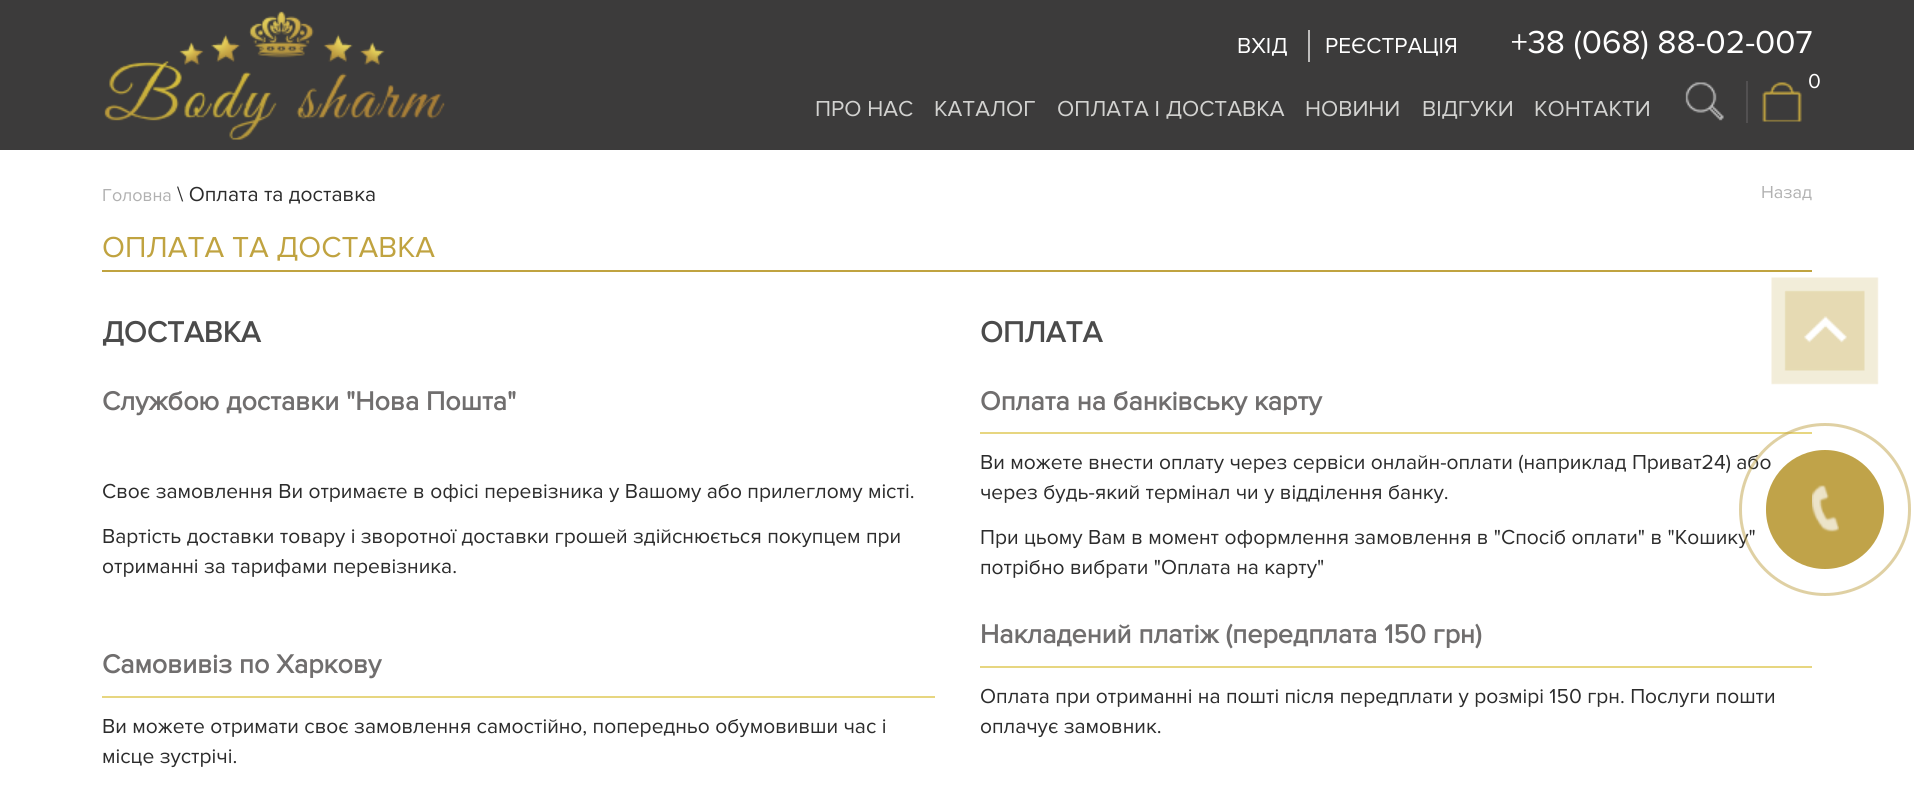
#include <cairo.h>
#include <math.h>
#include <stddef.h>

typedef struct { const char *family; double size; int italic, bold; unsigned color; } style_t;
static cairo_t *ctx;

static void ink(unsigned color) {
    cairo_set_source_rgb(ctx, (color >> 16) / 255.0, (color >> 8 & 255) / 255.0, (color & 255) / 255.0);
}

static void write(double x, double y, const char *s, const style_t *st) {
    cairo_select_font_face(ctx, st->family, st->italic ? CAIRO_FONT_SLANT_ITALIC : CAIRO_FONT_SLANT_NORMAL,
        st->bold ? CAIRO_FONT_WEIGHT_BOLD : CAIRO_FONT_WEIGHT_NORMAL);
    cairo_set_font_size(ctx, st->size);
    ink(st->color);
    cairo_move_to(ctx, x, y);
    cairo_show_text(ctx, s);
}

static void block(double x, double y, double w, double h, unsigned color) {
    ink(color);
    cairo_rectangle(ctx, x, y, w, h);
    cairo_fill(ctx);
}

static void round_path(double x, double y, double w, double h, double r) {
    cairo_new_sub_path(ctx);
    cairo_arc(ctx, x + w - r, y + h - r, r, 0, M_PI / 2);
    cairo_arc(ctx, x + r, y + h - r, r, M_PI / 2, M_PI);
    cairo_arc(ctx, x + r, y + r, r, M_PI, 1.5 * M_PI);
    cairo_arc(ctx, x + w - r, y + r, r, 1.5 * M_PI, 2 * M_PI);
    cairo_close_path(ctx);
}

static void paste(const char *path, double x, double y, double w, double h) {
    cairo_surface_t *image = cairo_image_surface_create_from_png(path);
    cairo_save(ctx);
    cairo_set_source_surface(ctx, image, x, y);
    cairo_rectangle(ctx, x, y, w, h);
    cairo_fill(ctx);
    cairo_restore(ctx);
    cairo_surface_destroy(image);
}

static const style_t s1 = {"Proxima Nova", 22.5, 0, 0, 0xffffff};
static const style_t s2 = {"Proxima Nova", 33, 0, 0, 0xffffff};
static const style_t s3 = {"Proxima Nova", 21, 0, 0, 0xffffff};
static const style_t s4 = {"Proxima Nova", 22.5, 0, 0, 0xd2d2d0};
static const style_t s5 = {"Proxima Nova", 18, 0, 0, 0xb1b1b1};
static const style_t s6 = {"Proxima Nova", 21, 0, 0, 0x2c2c2c};
static const style_t s7 = {"Proxima Nova", 30, 0, 0, 0xc0a340};
static const style_t s8 = {"Proxima Nova", 30, 0, 1, 0x4b4b4b};
static const style_t s9 = {"Proxima Nova", 27, 0, 1, 0x706e6e};

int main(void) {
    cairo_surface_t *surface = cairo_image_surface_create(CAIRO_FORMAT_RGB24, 1914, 792);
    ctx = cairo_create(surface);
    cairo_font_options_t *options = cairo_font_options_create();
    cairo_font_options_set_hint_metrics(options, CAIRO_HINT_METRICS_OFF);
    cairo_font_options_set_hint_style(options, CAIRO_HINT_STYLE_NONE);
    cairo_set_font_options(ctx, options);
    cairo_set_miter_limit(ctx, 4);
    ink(0xffffff);
    cairo_paint(ctx);
    block(0, 0, 1914, 150, 0x3c3b3b);
    paste("pic1.png", 104, 11, 341, 129);
    write(1237, 53, "ВХІД", &s1);
    block(1308, 30, 2, 32, 0xbebdbc);
    write(1325, 53, "РЕЄСТРАЦІЯ", &s1);
    write(1511, 53, "+38 (068) 88-02-007", &s2);
    paste("pic2.png", 1685, 82, 39, 39);
    block(1746, 81, 2, 42, 0x525051);
    paste("pic3.png", 1762, 82, 40, 40);
    write(1808, 88, "0", &s3);
    write(815, 116, "ПРО НАС", &s4);
    write(934, 116, "КАТАЛОГ", &s4);
    write(1057, 116, "ОПЛАТА І ДОСТАВКА", &s4);
    write(1305, 116, "НОВИНИ", &s4);
    write(1422, 116, "ВІДГУКИ", &s4);
    write(1534, 116, "КОНТАКТИ", &s4);
    write(102, 201, "Головна", &s5);
    write(177, 201, "\\ Оплата та доставка", &s6);
    write(1761, 198, "Назад", &s5);
    block(102, 270, 1710, 2, 0xc0a340);
    write(102, 257, "ОПЛАТА ТА ДОСТАВКА", &s7);
    write(102, 342, "ДОСТАВКА", &s8);
    write(102, 410, "Службою доставки \"Нова Пошта\"", &s9);
    write(102, 498, "Своє замовлення Ви отримаєте в офісі перевізника у Вашому або прилеглому місті.", &s6);
    write(102, 543, "Вартість доставки товару і зворотної доставки грошей здійснюється покупцем при", &s6);
    write(102, 573, "отриманні за тарифами перевізника.", &s6);
    write(102, 673, "Самовивіз по Харкову", &s9);
    block(102, 696, 833, 2, 0xe7d680);
    write(102, 733, "Ви можете отримати своє замовлення самостійно, попередньо обумовивши час і", &s6);
    write(102, 763, "місце зустрічі.", &s6);
    write(980, 342, "ОПЛАТА", &s8);
    write(980, 410, "Оплата на банківську карту", &s9);
    block(980, 432, 832, 2, 0xe7d680);
    write(980, 469, "Ви можете внести оплату через сервіси онлайн-оплати (наприклад Приват24) або", &s6);
    write(980, 499, "через будь-який термінал чи у відділення банку.", &s6);
    write(980, 544, "При цьому Вам в момент оформлення замовлення в \"Спосіб оплати\" в \"Кошику\"", &s6);
    write(980, 574, "потрібно вибрати \"Оплата на карту\"", &s6);
    write(980, 643, "Накладений платіж (передплата 150 грн)", &s9);
    block(980, 666, 832, 2, 0xe7d680);
    write(980, 703, "Оплата при отриманні на пошті після передплати у розмірі 150 грн. Послуги пошти", &s6);
    write(980, 733, "оплачує замовник.", &s6);
    paste("pic4.png", 1771, 277, 108, 108);
    round_path(1740.5, 424.5, 169, 170, 84.5);
    cairo_set_source_rgba(ctx, 0.753, 0.639, 0.286, 0.5);
    cairo_set_line_width(ctx, 3);
    cairo_stroke(ctx);
    ink(0xc0a349);
    round_path(1766, 450, 118, 119, 59);
    cairo_fill(ctx);
    paste("pic5.png", 1812, 485, 27, 47);
    cairo_surface_write_to_png(surface, "screenshot.png");
    cairo_font_options_destroy(options);
    cairo_destroy(ctx);
    cairo_surface_destroy(surface);
    return 0;
}
